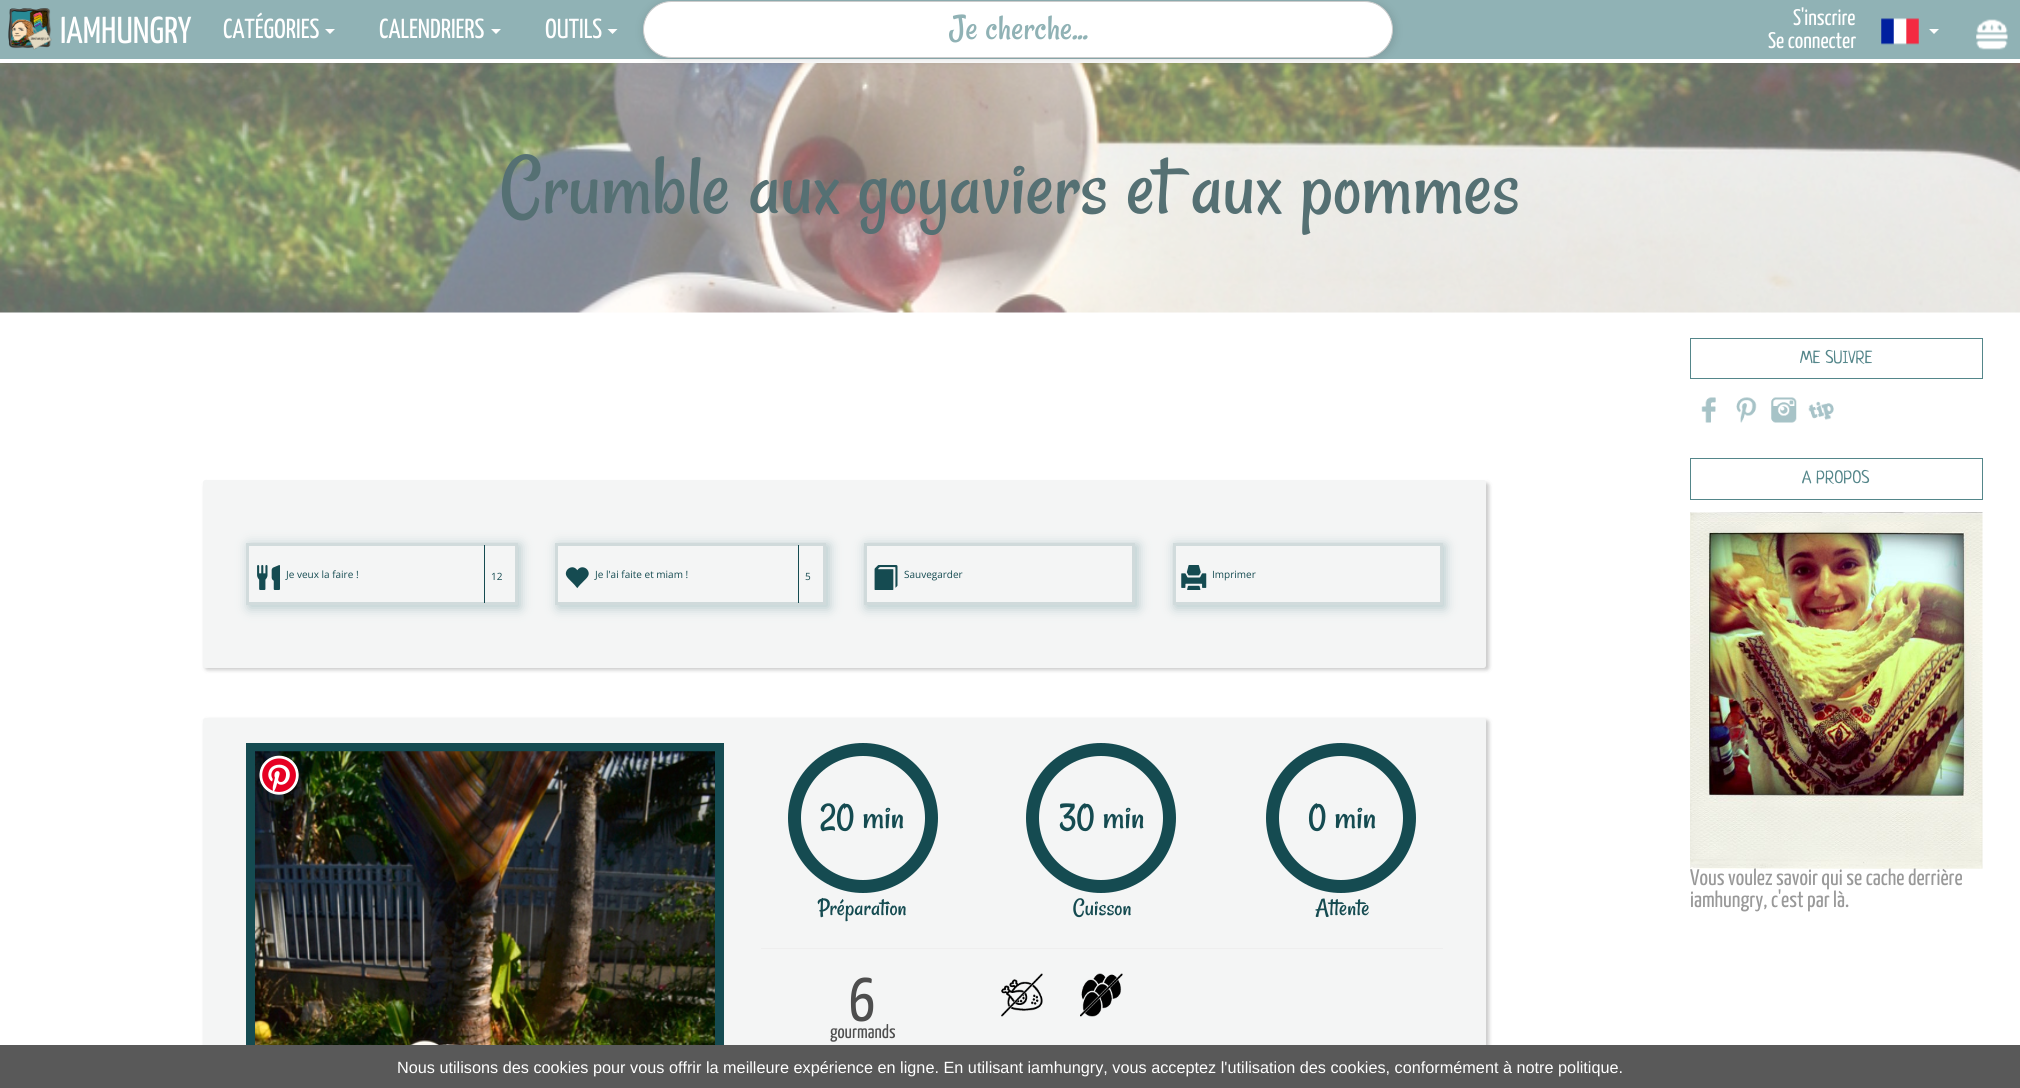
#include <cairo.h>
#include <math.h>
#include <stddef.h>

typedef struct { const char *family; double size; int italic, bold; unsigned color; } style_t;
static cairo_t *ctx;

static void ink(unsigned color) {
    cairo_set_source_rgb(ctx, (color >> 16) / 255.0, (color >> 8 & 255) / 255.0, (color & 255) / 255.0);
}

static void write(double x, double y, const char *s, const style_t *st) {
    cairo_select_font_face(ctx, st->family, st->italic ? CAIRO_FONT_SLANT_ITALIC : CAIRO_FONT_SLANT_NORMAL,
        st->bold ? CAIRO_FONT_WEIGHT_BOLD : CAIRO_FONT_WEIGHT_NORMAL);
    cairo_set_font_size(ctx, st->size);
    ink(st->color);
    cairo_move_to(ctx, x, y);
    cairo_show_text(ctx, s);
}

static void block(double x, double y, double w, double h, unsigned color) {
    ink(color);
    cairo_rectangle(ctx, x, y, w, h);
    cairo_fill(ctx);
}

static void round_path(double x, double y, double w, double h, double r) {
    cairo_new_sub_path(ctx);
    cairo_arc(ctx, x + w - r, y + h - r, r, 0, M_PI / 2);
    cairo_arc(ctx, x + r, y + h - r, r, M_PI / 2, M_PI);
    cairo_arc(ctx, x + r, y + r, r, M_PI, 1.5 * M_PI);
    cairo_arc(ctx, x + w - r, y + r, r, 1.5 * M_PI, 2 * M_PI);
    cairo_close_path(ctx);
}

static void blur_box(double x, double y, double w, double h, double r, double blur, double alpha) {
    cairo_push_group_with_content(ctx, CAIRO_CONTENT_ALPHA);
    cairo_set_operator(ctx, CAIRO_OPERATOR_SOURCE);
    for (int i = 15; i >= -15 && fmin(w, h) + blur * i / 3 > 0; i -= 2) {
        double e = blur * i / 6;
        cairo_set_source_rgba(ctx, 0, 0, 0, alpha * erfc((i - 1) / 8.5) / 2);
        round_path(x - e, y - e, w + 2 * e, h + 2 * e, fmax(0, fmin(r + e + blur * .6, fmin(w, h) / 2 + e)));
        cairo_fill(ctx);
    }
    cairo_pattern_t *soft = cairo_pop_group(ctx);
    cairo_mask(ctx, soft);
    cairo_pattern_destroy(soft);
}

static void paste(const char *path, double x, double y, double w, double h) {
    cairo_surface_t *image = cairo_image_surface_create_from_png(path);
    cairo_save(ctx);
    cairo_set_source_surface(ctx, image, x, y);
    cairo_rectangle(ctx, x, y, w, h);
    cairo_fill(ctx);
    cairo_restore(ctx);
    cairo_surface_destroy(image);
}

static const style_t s1 = {"Yanone Kaffeesatz ExtraLight", 37.5, 0, 0, 0xffffff};
static const style_t s2 = {"Yanone Kaffeesatz ExtraLight", 27.5, 0, 0, 0xffffff};
static const style_t s3 = {"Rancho", 37.5, 0, 0, 0x90b2b5};
static const style_t s4 = {"Yanone Kaffeesatz ExtraLight", 22.5, 0, 0, 0xffffff};
static const style_t s5 = {"Rancho", 87.5, 0, 0, 0x557073};
static const style_t s6 = {"Open Sans", 10, 0, 0, 0x154b51};
static const style_t s7 = {"Rancho", 37.5, 0, 0, 0x154b51};
static const style_t s8 = {"Rancho", 25, 0, 0, 0x154b51};
static const style_t s9 = {"Yanone Kaffeesatz ExtraLight", 62, 0, 0, 0x4e4e4e};
static const style_t s10 = {"Yanone Kaffeesatz ExtraLight", 19, 0, 0, 0x4e4e4e};
static const style_t s11 = {"Neucha", 17.5, 0, 0, 0x54868a};
static const style_t s12 = {"Yanone Kaffeesatz ExtraLight", 22.5, 0, 0, 0x999999};
static const style_t s13 = {"Liberation Sans", 16.25, 0, 0, 0xffffff};

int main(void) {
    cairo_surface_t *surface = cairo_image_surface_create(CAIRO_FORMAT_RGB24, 2020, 1088);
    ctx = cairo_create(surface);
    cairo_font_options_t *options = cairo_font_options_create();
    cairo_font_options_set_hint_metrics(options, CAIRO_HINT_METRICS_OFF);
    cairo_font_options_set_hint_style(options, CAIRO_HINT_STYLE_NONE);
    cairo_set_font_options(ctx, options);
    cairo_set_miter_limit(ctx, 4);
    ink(0xffffff);
    cairo_paint(ctx);
    block(0, 0, 2020, 59, 0x90b2b5);
    paste("pic1.png", 8, 8, 44, 42);
    write(60, 43, "IAMHUNGRY", &s1);
    write(223, 38, "CATÉGORIES", &s2);
    cairo_new_path(ctx);
    cairo_move_to(ctx, 325, 29);
    cairo_line_to(ctx, 335, 29);
    cairo_line_to(ctx, 330, 34);
    cairo_close_path(ctx);
    cairo_fill(ctx);
    write(379, 38, "CALENDRIERS", &s2);
    cairo_new_path(ctx);
    cairo_move_to(ctx, 491, 29);
    cairo_line_to(ctx, 501, 29);
    cairo_line_to(ctx, 496, 34);
    cairo_close_path(ctx);
    cairo_fill(ctx);
    write(545, 38, "OUTILS", &s2);
    cairo_new_path(ctx);
    cairo_move_to(ctx, 607.5, 29);
    cairo_line_to(ctx, 617.5, 29);
    cairo_line_to(ctx, 612.5, 34);
    cairo_close_path(ctx);
    cairo_fill(ctx);
    paste("pic4.png", 0, 63, 2020, 250);
    ink(0x000000);
    blur_box(644, 3, 750, 56, 28, 5, 0.14);
    ink(0xffffff);
    round_path(643.5, 1.5, 749, 56, 28);
    cairo_fill_preserve(ctx);
    ink(0xcccccc);
    cairo_set_line_width(ctx, 1);
    cairo_stroke(ctx);
    write(949, 39, "Je cherche...", &s3);
    write(1793, 25, "S'inscrire", &s4);
    write(1768, 48, "Se connecter", &s4);
    paste("pic2.png", 1881, 18, 38, 27);
    cairo_new_path(ctx);
    cairo_move_to(ctx, 1929, 29);
    cairo_line_to(ctx, 1939, 29);
    cairo_line_to(ctx, 1934, 34);
    cairo_close_path(ctx);
    cairo_fill(ctx);
    paste("pic3.png", 1976, 19, 32, 31);
    write(501, 213, "Crumble aux goyaviers et aux pommes", &s5);
    ink(0x000000);
    blur_box(205, 483, 1284, 187, 2.5, 2, 0.21);
    ink(0xf4f5f5);
    round_path(203, 480, 1283, 188, 2.5);
    cairo_fill(ctx);
    cairo_save(ctx);
    cairo_set_fill_rule(ctx, CAIRO_FILL_RULE_EVEN_ODD);
    cairo_new_path(ctx);
    cairo_move_to(ctx, 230, 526);
    cairo_line_to(ctx, 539, 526);
    cairo_line_to(ctx, 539, 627);
    cairo_line_to(ctx, 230, 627);
    cairo_close_path(ctx);
    cairo_move_to(ctx, 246, 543);
    cairo_line_to(ctx, 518, 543);
    cairo_line_to(ctx, 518, 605);
    cairo_line_to(ctx, 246, 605);
    cairo_close_path(ctx);
    cairo_clip(ctx);
    ink(0x55868b);
    blur_box(249, 545, 271, 63, 0, 6, 0.4);
    cairo_restore(ctx);
    cairo_rectangle(ctx, 247.5, 544.5, 269, 59);
    cairo_set_source_rgba(ctx, 0.082, 0.294, 0.318, 0.16);
    cairo_set_line_width(ctx, 3);
    cairo_stroke(ctx);
    paste("pic5.png", 257, 565, 23, 25);
    write(286, 578, "Je veux la faire !", &s6);
    block(484, 545, 1, 58, 0x154b51);
    write(491, 580, "12", &s6);
    cairo_save(ctx);
    cairo_set_fill_rule(ctx, CAIRO_FILL_RULE_EVEN_ODD);
    cairo_new_path(ctx);
    cairo_move_to(ctx, 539, 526);
    cairo_line_to(ctx, 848, 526);
    cairo_line_to(ctx, 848, 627);
    cairo_line_to(ctx, 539, 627);
    cairo_close_path(ctx);
    cairo_move_to(ctx, 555, 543);
    cairo_line_to(ctx, 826, 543);
    cairo_line_to(ctx, 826, 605);
    cairo_line_to(ctx, 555, 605);
    cairo_close_path(ctx);
    cairo_clip(ctx);
    ink(0x55868b);
    blur_box(558, 545, 271, 63, 0, 6, 0.4);
    cairo_restore(ctx);
    cairo_rectangle(ctx, 556.5, 544.5, 268, 59);
    ink(0xd0dadb);
    cairo_stroke(ctx);
    paste("pic6.png", 565, 567, 24, 22);
    write(595, 578, "Je l'ai faite et miam !", &s6);
    block(798, 545, 1, 58, 0x154b51);
    write(805, 580, "5", &s6);
    cairo_save(ctx);
    cairo_set_fill_rule(ctx, CAIRO_FILL_RULE_EVEN_ODD);
    cairo_new_path(ctx);
    cairo_move_to(ctx, 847, 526);
    cairo_line_to(ctx, 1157, 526);
    cairo_line_to(ctx, 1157, 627);
    cairo_line_to(ctx, 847, 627);
    cairo_close_path(ctx);
    cairo_move_to(ctx, 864, 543);
    cairo_line_to(ctx, 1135, 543);
    cairo_line_to(ctx, 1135, 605);
    cairo_line_to(ctx, 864, 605);
    cairo_close_path(ctx);
    cairo_clip(ctx);
    ink(0x55868b);
    blur_box(866, 545, 272, 63, 0, 6, 0.4);
    cairo_restore(ctx);
    cairo_rectangle(ctx, 865.5, 544.5, 268, 59);
    ink(0xd0dadb);
    cairo_stroke(ctx);
    paste("pic7.png", 874, 565, 24, 25);
    write(904, 578, "Sauvegarder", &s6);
    cairo_save(ctx);
    cairo_set_fill_rule(ctx, CAIRO_FILL_RULE_EVEN_ODD);
    cairo_new_path(ctx);
    cairo_move_to(ctx, 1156, 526);
    cairo_line_to(ctx, 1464, 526);
    cairo_line_to(ctx, 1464, 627);
    cairo_line_to(ctx, 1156, 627);
    cairo_close_path(ctx);
    cairo_move_to(ctx, 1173, 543);
    cairo_line_to(ctx, 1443, 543);
    cairo_line_to(ctx, 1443, 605);
    cairo_line_to(ctx, 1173, 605);
    cairo_close_path(ctx);
    cairo_clip(ctx);
    ink(0x55868b);
    blur_box(1175, 545, 270, 63, 0, 6, 0.4);
    cairo_restore(ctx);
    cairo_rectangle(ctx, 1174.5, 544.5, 267, 59);
    cairo_set_source_rgba(ctx, 0.082, 0.294, 0.318, 0.16);
    cairo_stroke(ctx);
    paste("pic8.png", 1181, 565, 26, 25);
    write(1212, 578, "Imprimer", &s6);
    ink(0x000000);
    blur_box(205, 720, 1284, 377, 2.5, 2, 0.21);
    ink(0xf4f5f5);
    round_path(203, 718, 1283, 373, 2.5);
    cairo_fill(ctx);
    cairo_rectangle(ctx, 250.5, 747.5, 469, 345);
    ink(0x154b51);
    cairo_set_line_width(ctx, 9);
    cairo_stroke(ctx);
    paste("pic9.png", 255, 751, 460, 294);
    paste("pic10.png", 259, 755, 40, 40);
    cairo_arc(ctx, 863, 818, 68.5, 0, 2 * M_PI);
    cairo_set_line_width(ctx, 13);
    cairo_stroke(ctx);
    write(820, 828, "20 min", &s7);
    write(818, 915, "Préparation", &s8);
    cairo_new_path(ctx);
    cairo_arc(ctx, 1101, 818, 68.5, 0, 2 * M_PI);
    cairo_stroke(ctx);
    write(1059, 828, "30 min", &s7);
    write(1073, 915, "Cuisson", &s8);
    cairo_new_path(ctx);
    cairo_arc(ctx, 1341, 818, 68.5, 0, 2 * M_PI);
    cairo_stroke(ctx);
    write(1308, 828, "0 min", &s7);
    write(1315, 915, "Attente", &s8);
    block(761, 948, 682, 1, 0xeeeeee);
    write(849, 1021, "6", &s9);
    write(830, 1038, "gourmands", &s10);
    paste("pic11.png", 1001, 973, 42, 44);
    paste("pic12.png", 1080, 973, 43, 44);
    cairo_rectangle(ctx, 1690.5, 338.5, 292, 40);
    ink(0x54868a);
    cairo_set_line_width(ctx, 1);
    cairo_stroke(ctx);
    write(1800, 363, "ME SUIVRE", &s11);
    paste("pic13.png", 1701, 397, 15, 26);
    paste("pic14.png", 1736, 397, 21, 26);
    paste("pic15.png", 1771, 397, 26, 26);
    paste("pic16.png", 1808, 401, 26, 19);
    cairo_rectangle(ctx, 1690.5, 458.5, 292, 41);
    cairo_stroke(ctx);
    write(1802, 483, "A PROPOS", &s11);
    paste("pic17.png", 1690, 512, 293, 357);
    write(1690, 885, "Vous voulez savoir qui se cache derrière", &s12);
    write(1690, 907, "iamhungry, c'est par là.", &s12);
    block(0, 1045, 2020, 43, 0x595959);
    write(397, 1073, "Nous utilisons des cookies pour vous offrir la meilleure expérience en ligne. En utilisant iamhungry, vous acceptez l'utilisation des cookies, conformément à notre politique.", &s13);
    cairo_surface_write_to_png(surface, "screenshot.png");
    cairo_font_options_destroy(options);
    cairo_destroy(ctx);
    cairo_surface_destroy(surface);
    return 0;
}
